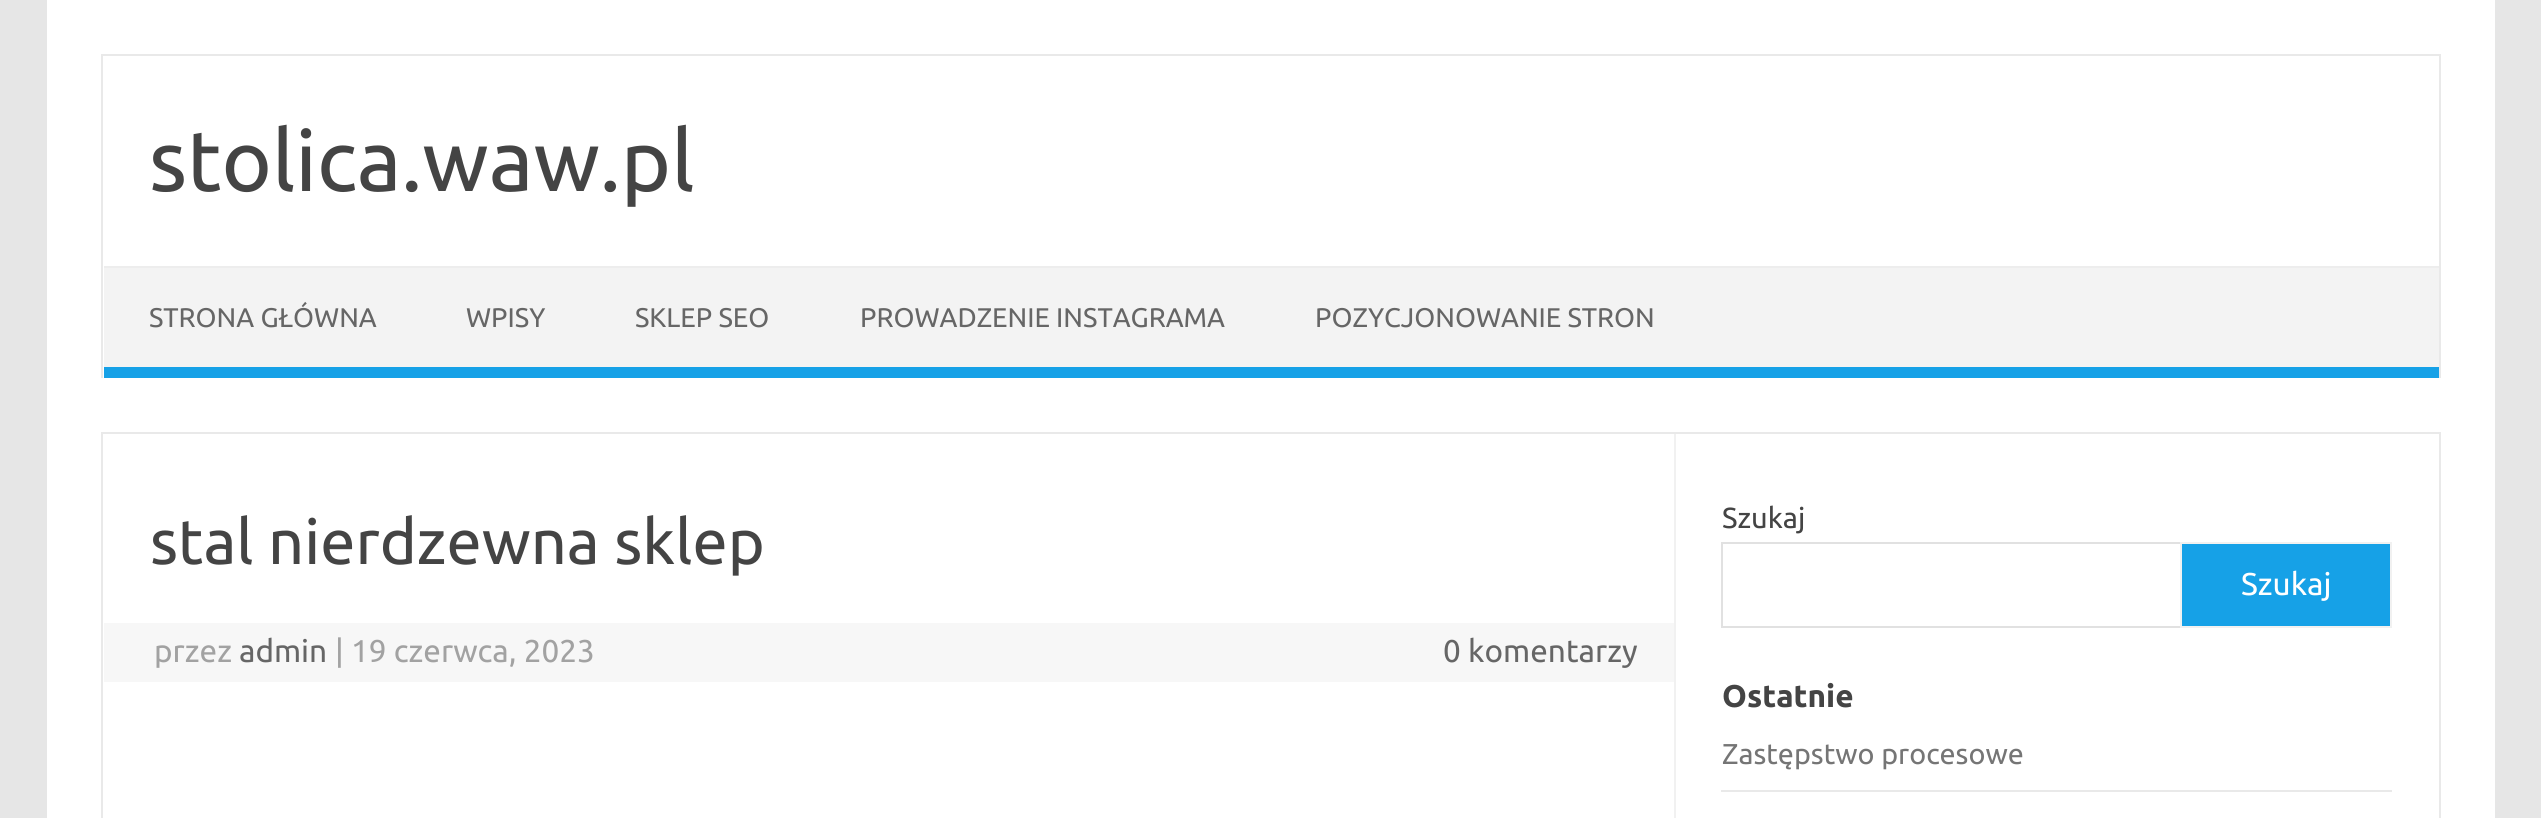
#include <cairo.h>
#include <math.h>
#include <stddef.h>

typedef struct { const char *family; double size; int italic, bold; unsigned color; } style_t;
static cairo_t *ctx;

static void ink(unsigned color) {
    cairo_set_source_rgb(ctx, (color >> 16) / 255.0, (color >> 8 & 255) / 255.0, (color & 255) / 255.0);
}

static void write(double x, double y, const char *s, const style_t *st) {
    cairo_select_font_face(ctx, st->family, st->italic ? CAIRO_FONT_SLANT_ITALIC : CAIRO_FONT_SLANT_NORMAL,
        st->bold ? CAIRO_FONT_WEIGHT_BOLD : CAIRO_FONT_WEIGHT_NORMAL);
    cairo_set_font_size(ctx, st->size);
    ink(st->color);
    cairo_move_to(ctx, x, y);
    cairo_show_text(ctx, s);
}

static void block(double x, double y, double w, double h, unsigned color) {
    ink(color);
    cairo_rectangle(ctx, x, y, w, h);
    cairo_fill(ctx);
}

static const style_t s1 = {"Ubuntu", 85.5, 0, 0, 0x444444};
static const style_t s2 = {"Ubuntu", 27, 0, 0, 0x666666};
static const style_t s3 = {"Ubuntu", 63, 0, 0, 0x444444};
static const style_t s4 = {"Ubuntu", 31.5, 0, 0, 0xa2a2a2};
static const style_t s5 = {"Ubuntu", 31.5, 0, 0, 0x666666};
static const style_t s6 = {"Ubuntu", 29, 0, 0, 0x444444};
static const style_t s7 = {"Ubuntu", 31.5, 0, 0, 0xffffff};
static const style_t s8 = {"Ubuntu", 31.5, 0, 1, 0x444444};
static const style_t s9 = {"Ubuntu", 28.75, 0, 0, 0x757575};

int main(void) {
    cairo_surface_t *surface = cairo_image_surface_create(CAIRO_FORMAT_RGB24, 2541, 818);
    ctx = cairo_create(surface);
    cairo_font_options_t *options = cairo_font_options_create();
    cairo_font_options_set_hint_metrics(options, CAIRO_HINT_METRICS_OFF);
    cairo_font_options_set_hint_style(options, CAIRO_HINT_STYLE_NONE);
    cairo_set_font_options(ctx, options);
    cairo_set_miter_limit(ctx, 4);
    ink(0xe6e6e6);
    cairo_paint(ctx);
    block(47, 0, 2448, 818, 0xffffff);
    block(101, 54, 2340, 2, 0xe9e9e9);
    block(2439, 54, 2, 324, 0xe9e9e9);
    block(101, 54, 2, 324, 0xe9e9e9);
    write(149, 191, "stolica.waw.pl", &s1);
    block(104, 268, 2335, 99, 0xf3f3f3);
    block(104, 266, 2335, 2, 0xededed);
    block(104, 367, 2335, 11, 0x16a1e7);
    write(149, 327, "STRONA GŁÓWNA", &s2);
    write(466, 327, "WPISY", &s2);
    write(635, 327, "SKLEP SEO", &s2);
    write(860, 327, "PROWADZENIE INSTAGRAMA", &s2);
    write(1315, 327, "POZYCJONOWANIE STRON", &s2);
    cairo_rectangle(ctx, 102, 433, 2338, 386);
    ink(0xe9e9e9);
    cairo_stroke(ctx);
    block(1674, 434, 2, 384, 0xf1f1f1);
    write(150, 564, "stal nierdzewna sklep", &s3);
    block(104, 623, 1570, 59, 0xf7f7f7);
    write(154, 662, "przez", &s4);
    write(239, 662, "admin", &s5);
    write(335, 662, "| 19 czerwca, 2023", &s4);
    write(1443, 662, "0 komentarzy", &s5);
    write(1722, 528, "Szukaj", &s6);
    cairo_rectangle(ctx, 1722, 543, 460, 84);
    ink(0xe1e1e1);
    cairo_stroke(ctx);
    ink(0x16a1e7);
    cairo_rectangle(ctx, 2181, 543, 210, 84);
    cairo_fill_preserve(ctx);
    ink(0xf1f1f1);
    cairo_stroke(ctx);
    write(2241, 595, "Szukaj", &s7);
    write(1722, 707, "Ostatnie", &s8);
    block(1721, 790, 671, 2, 0xe9e9e9);
    write(1722, 764, "Zastępstwo procesowe", &s9);
    cairo_surface_write_to_png(surface, "screenshot.png");
    cairo_font_options_destroy(options);
    cairo_destroy(ctx);
    cairo_surface_destroy(surface);
    return 0;
}
